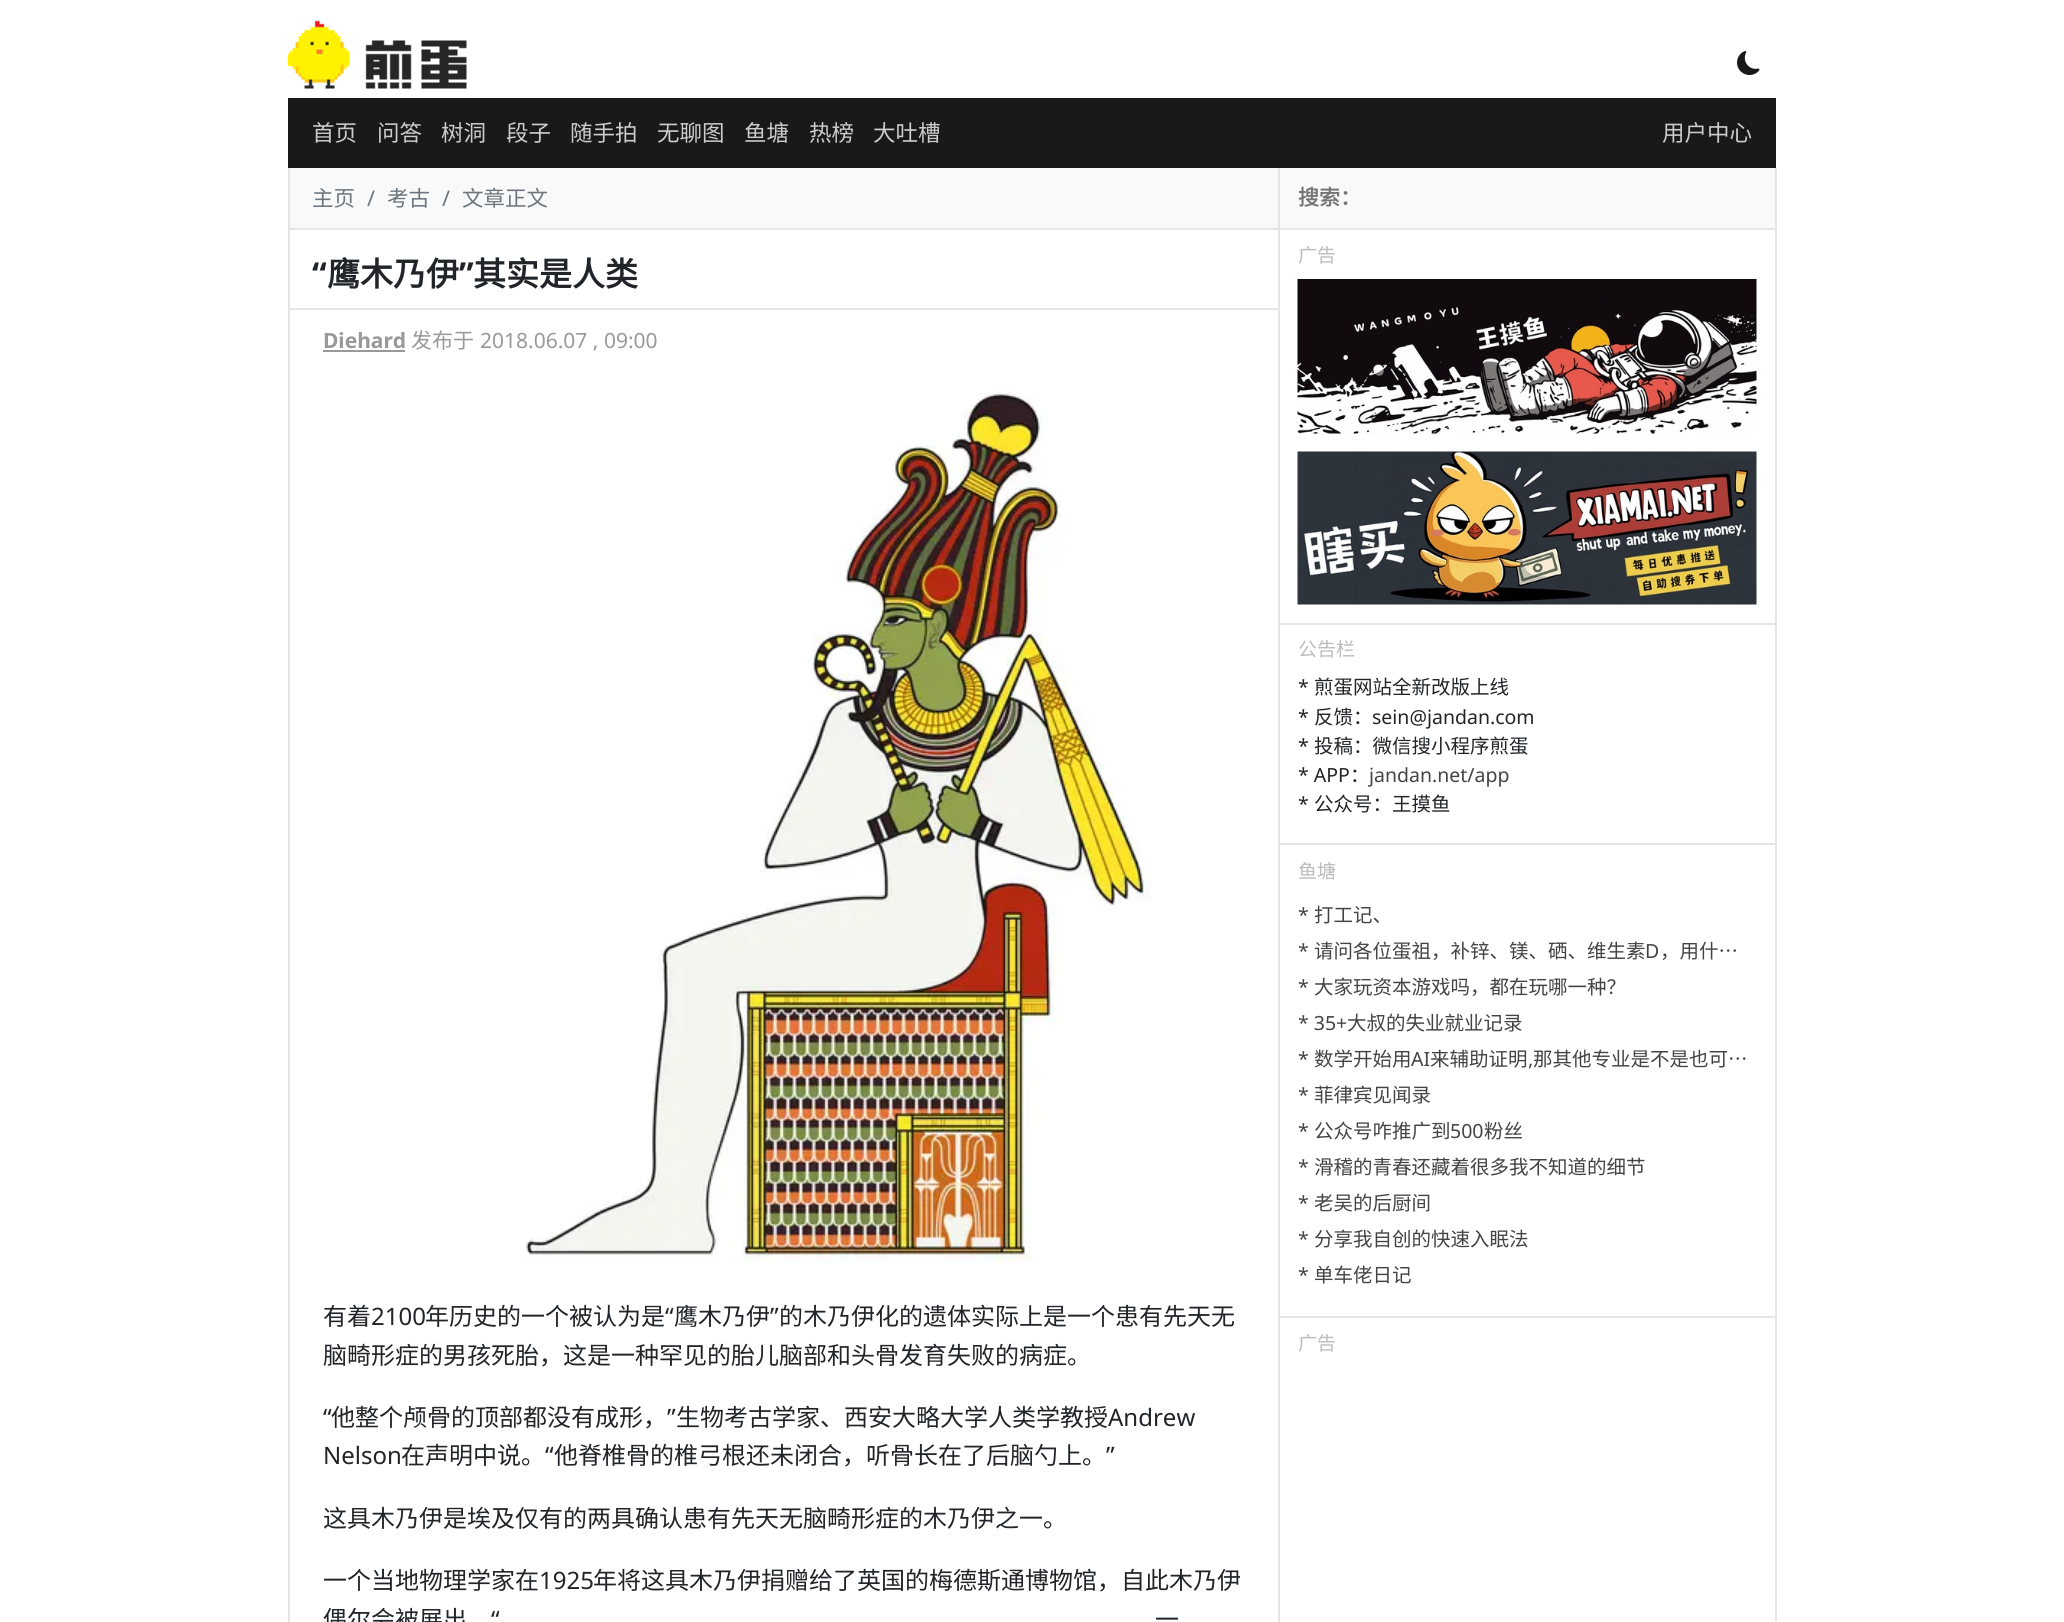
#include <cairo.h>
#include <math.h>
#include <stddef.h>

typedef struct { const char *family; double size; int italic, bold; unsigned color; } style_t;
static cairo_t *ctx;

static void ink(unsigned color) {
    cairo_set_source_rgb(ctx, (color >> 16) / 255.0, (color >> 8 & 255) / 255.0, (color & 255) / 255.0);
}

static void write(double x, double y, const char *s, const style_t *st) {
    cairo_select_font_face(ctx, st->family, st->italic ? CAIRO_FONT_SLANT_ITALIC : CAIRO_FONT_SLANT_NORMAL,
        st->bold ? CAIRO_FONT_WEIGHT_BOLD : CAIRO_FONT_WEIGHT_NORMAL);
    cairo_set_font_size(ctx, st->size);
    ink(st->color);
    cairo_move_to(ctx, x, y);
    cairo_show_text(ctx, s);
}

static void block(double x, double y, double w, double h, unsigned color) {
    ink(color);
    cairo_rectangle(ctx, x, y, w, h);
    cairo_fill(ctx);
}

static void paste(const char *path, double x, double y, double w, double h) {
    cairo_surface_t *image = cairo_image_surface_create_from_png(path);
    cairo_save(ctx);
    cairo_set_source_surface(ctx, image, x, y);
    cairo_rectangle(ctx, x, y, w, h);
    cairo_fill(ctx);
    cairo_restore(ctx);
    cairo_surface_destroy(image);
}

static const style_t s1 = {"Noto Sans CJK SC", 22.5, 0, 0, 0xcccccc};
static const style_t s2 = {"Noto Sans CJK SC", 21.5, 0, 0, 0x6c757d};
static const style_t s3 = {"Noto Sans", 21.5, 0, 0, 0x6c757d};
static const style_t s4 = {"Noto Sans", 33, 0, 1, 0x212529};
static const style_t s5 = {"Noto Sans CJK SC", 33, 0, 1, 0x212529};
static const style_t s6 = {"Noto Sans", 21, 0, 1, 0x999999};
static const style_t s7 = {"Noto Sans CJK SC", 21, 0, 0, 0x999999};
static const style_t s8 = {"Noto Sans", 21, 0, 0, 0x999999};
static const style_t s9 = {"Noto Sans CJK SC", 24, 0, 0, 0x212529};
static const style_t s10 = {"Noto Sans", 24, 0, 0, 0x212529};
static const style_t s11 = {"Noto Sans CJK SC", 21, 0, 1, 0x757575};
static const style_t s12 = {"Noto Sans CJK SC", 19, 0, 0, 0xbbbbbb};
static const style_t s13 = {"Noto Sans", 19.5, 0, 0, 0x212529};
static const style_t s14 = {"Noto Sans CJK SC", 19.5, 0, 0, 0x212529};
static const style_t s15 = {"Noto Sans", 19.5, 0, 0, 0x444444};
static const style_t s16 = {"Noto Sans CJK SC", 19.5, 0, 0, 0x444444};

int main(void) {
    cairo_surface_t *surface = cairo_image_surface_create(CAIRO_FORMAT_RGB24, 2064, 1622);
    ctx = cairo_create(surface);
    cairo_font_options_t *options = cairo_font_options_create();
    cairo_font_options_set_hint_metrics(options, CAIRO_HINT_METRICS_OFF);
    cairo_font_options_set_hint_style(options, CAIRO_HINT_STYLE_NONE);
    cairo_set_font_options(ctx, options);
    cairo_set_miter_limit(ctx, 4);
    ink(0xffffff);
    cairo_paint(ctx);
    paste("pic1.png", 288, 20, 179, 69);
    paste("pic2.png", 1737, 51, 23, 24);
    block(288, 98, 1488, 70, 0x191919);
    write(312, 141, "首页", &s1);
    write(377, 141, "问答", &s1);
    write(441, 141, "树洞", &s1);
    write(506, 141, "段子", &s1);
    write(570, 141, "随手拍", &s1);
    write(657, 141, "无聊图", &s1);
    write(744, 141, "鱼塘", &s1);
    write(809, 141, "热榜", &s1);
    write(873, 141, "大吐槽", &s1);
    write(1662, 141, "用户中心", &s1);
    block(1278, 168, 2, 1454, 0xe5e5e5);
    block(288, 168, 2, 1454, 0xe5e5e5);
    block(290, 168, 988, 60, 0xf9f9f9);
    block(290, 228, 988, 2, 0xe5e5e5);
    write(312, 206, "主页", &s2);
    write(367, 206, "/", &s3);
    write(387, 206, "考古", &s2);
    write(442, 206, "/", &s3);
    write(462, 206, "文章正文", &s2);
    block(290, 308, 988, 2, 0xe5e5e5);
    write(312, 286, "“", &s4);
    write(327, 286, "鹰木乃伊", &s5);
    write(459, 286, "”", &s4);
    write(473, 286, "其实是人类", &s5);
    write(323, 348, "Diehard", &s6);
    block(323, 350, 82, 2, 0x999999);
    write(411, 348, "发布于", &s7);
    write(480, 348, "2018.06.07 , 09:00", &s8);
    paste("pic3.png", 526, 391, 625, 872);
    write(323, 1325, "有着", &s9);
    write(371, 1325, "2100", &s10);
    write(425, 1325, "年历史的一个被认为是", &s9);
    write(665, 1325, "“", &s10);
    write(674, 1325, "鹰木乃伊", &s9);
    write(770, 1325, "”", &s10);
    write(779, 1325, "的木乃伊化的遗体实际上是一个患有先天无", &s9);
    write(323, 1364, "脑畸形症的男孩死胎，这是一种罕见的胎儿脑部和头骨发育失败的病症。", &s9);
    write(323, 1426, "“", &s10);
    write(331, 1426, "他整个颅骨的顶部都没有成形，", &s9);
    write(667, 1426, "”", &s10);
    write(676, 1426, "生物考古学家、西安大略大学人类学教授", &s9);
    write(1108, 1426, "Andrew", &s10);
    write(323, 1464, "Nelson", &s10);
    write(401, 1464, "在声明中说。", &s9);
    write(545, 1464, "“", &s10);
    write(554, 1464, "他脊椎骨的椎弓根还未闭合，听骨长在了后脑勺上。", &s9);
    write(1106, 1464, "”", &s10);
    write(323, 1527, "这具木乃伊是埃及仅有的两具确认患有先天无脑畸形症的木乃伊之一。", &s9);
    write(323, 1589, "一个当地物理学家在", &s9);
    write(539, 1589, "1925", &s10);
    write(593, 1589, "年将这具木乃伊捐赠给了英国的梅德斯通博物馆，自此木乃伊", &s9);
    write(323, 1628, "偶尔会被展出", &s9);
    write(491, 1628, "“", &s10);
    write(1155, 1628, "一", &s9);
    block(1775, 168, 2, 1454, 0xe5e5e5);
    block(1280, 168, 495, 60, 0xf9f9f9);
    write(1298, 205, "搜索：", &s11);
    block(1280, 228, 495, 2, 0xe5e5e5);
    write(1298, 262, "广告", &s12);
    paste("pic4.png", 1297, 279, 460, 155);
    paste("pic5.png", 1297, 451, 460, 154);
    block(1280, 623, 495, 2, 0xe5e5e5);
    write(1298, 656, "公告栏", &s12);
    write(1298, 694, "*", &s13);
    write(1314, 694, "煎蛋网站全新改版上线", &s14);
    write(1298, 724, "*", &s13);
    write(1314, 724, "反馈：", &s14);
    write(1372, 724, "sein@jandan.com", &s13);
    write(1298, 753, "*", &s13);
    write(1314, 753, "投稿：微信搜小程序煎蛋", &s14);
    write(1298, 782, "* APP", &s13);
    write(1350, 782, "：", &s14);
    write(1369, 782, "jandan.net/app", &s15);
    write(1298, 811, "*", &s13);
    write(1314, 811, "公众号：王摸鱼", &s14);
    block(1280, 843, 495, 2, 0xe5e5e5);
    write(1298, 878, "鱼塘", &s12);
    write(1298, 922, "*", &s15);
    write(1314, 922, "打工记、", &s16);
    write(1298, 958, "*", &s15);
    write(1314, 958, "请问各位蛋祖，补锌、镁、硒、维生素", &s16);
    write(1645, 958, "D", &s15);
    write(1660, 958, "，用什…", &s16);
    write(1298, 994, "*", &s15);
    write(1314, 994, "大家玩资本游戏吗，都在玩哪一种？", &s16);
    write(1298, 1030, "* 35+", &s15);
    write(1347, 1030, "大叔的失业就业记录", &s16);
    write(1298, 1066, "*", &s15);
    write(1314, 1066, "数学开始用", &s16);
    write(1411, 1066, "AI", &s15);
    write(1430, 1066, "来辅助证明", &s16);
    write(1528, 1066, ",", &s15);
    write(1533, 1066, "那其他专业是不是也可…", &s16);
    write(1298, 1102, "*", &s15);
    write(1314, 1102, "菲律宾见闻录", &s16);
    write(1298, 1138, "*", &s15);
    write(1314, 1138, "公众号咋推广到", &s16);
    write(1450, 1138, "500", &s15);
    write(1484, 1138, "粉丝", &s16);
    write(1298, 1174, "*", &s15);
    write(1314, 1174, "滑稽的青春还藏着很多我不知道的细节", &s16);
    write(1298, 1210, "*", &s15);
    write(1314, 1210, "老吴的后厨间", &s16);
    write(1298, 1246, "*", &s15);
    write(1314, 1246, "分享我自创的快速入眠法", &s16);
    write(1298, 1282, "*", &s15);
    write(1314, 1282, "单车佬日记", &s16);
    block(1280, 1316, 495, 2, 0xe5e5e5);
    write(1298, 1350, "广告", &s12);
    cairo_surface_write_to_png(surface, "screenshot.png");
    cairo_font_options_destroy(options);
    cairo_destroy(ctx);
    cairo_surface_destroy(surface);
    return 0;
}
